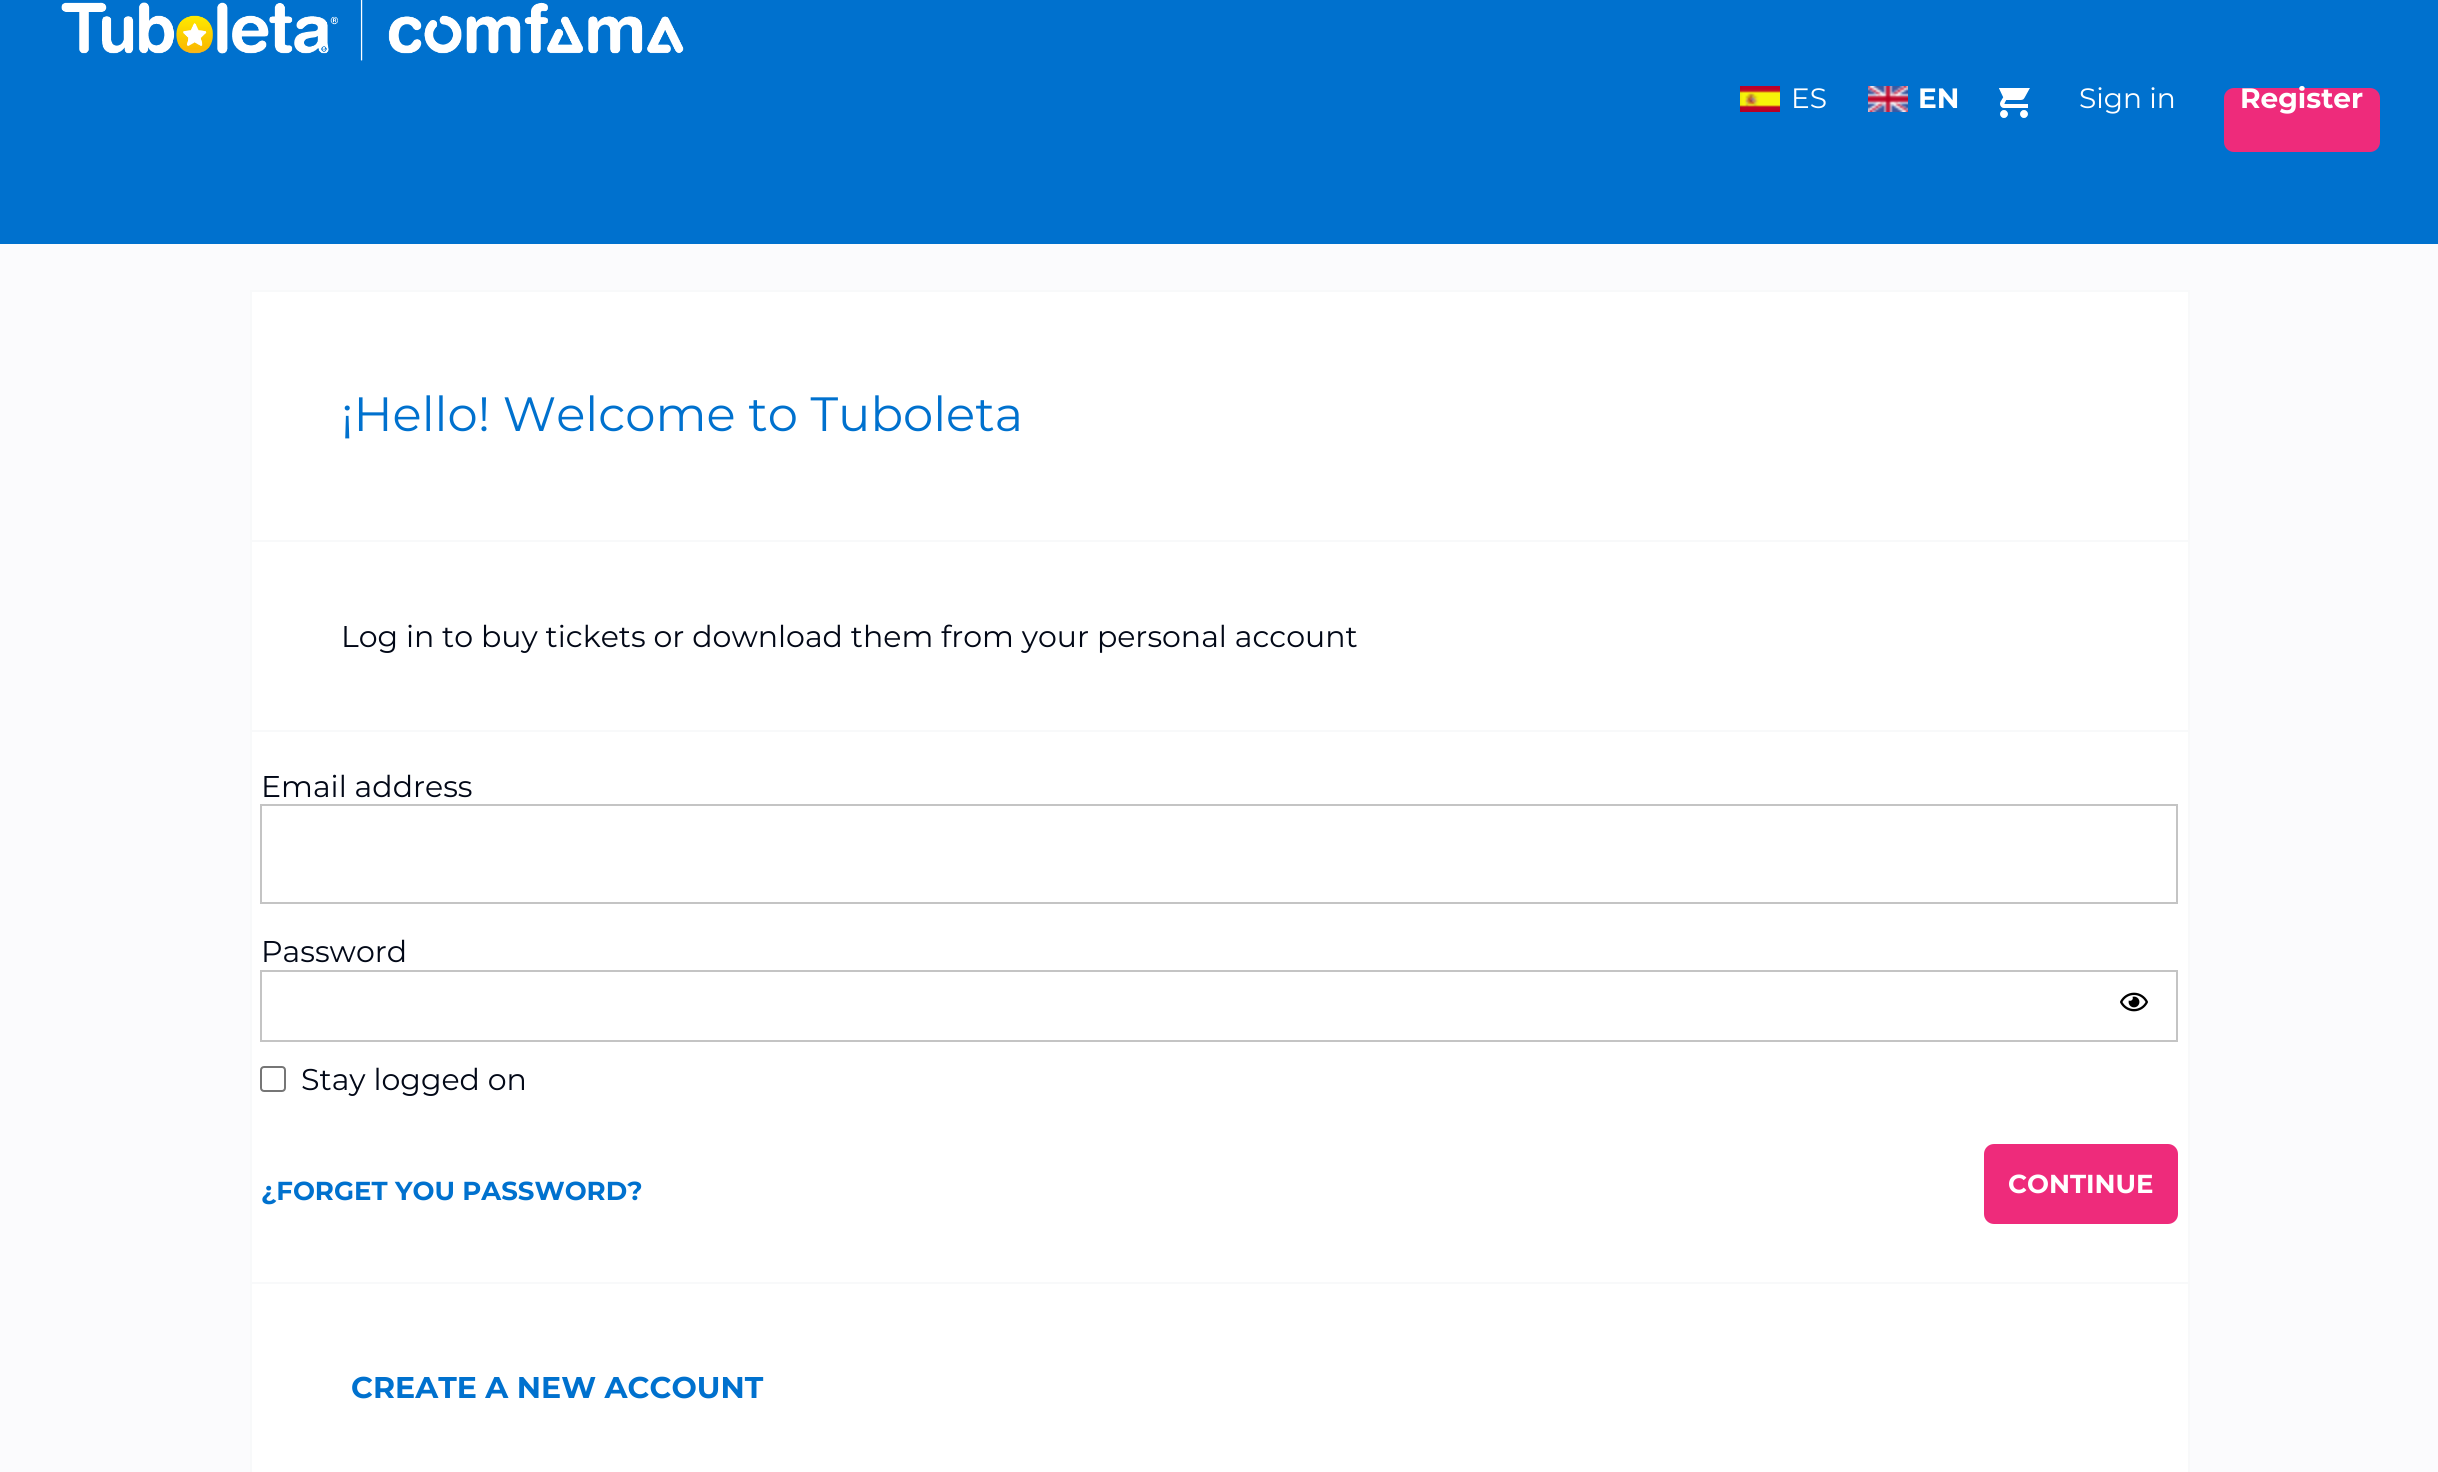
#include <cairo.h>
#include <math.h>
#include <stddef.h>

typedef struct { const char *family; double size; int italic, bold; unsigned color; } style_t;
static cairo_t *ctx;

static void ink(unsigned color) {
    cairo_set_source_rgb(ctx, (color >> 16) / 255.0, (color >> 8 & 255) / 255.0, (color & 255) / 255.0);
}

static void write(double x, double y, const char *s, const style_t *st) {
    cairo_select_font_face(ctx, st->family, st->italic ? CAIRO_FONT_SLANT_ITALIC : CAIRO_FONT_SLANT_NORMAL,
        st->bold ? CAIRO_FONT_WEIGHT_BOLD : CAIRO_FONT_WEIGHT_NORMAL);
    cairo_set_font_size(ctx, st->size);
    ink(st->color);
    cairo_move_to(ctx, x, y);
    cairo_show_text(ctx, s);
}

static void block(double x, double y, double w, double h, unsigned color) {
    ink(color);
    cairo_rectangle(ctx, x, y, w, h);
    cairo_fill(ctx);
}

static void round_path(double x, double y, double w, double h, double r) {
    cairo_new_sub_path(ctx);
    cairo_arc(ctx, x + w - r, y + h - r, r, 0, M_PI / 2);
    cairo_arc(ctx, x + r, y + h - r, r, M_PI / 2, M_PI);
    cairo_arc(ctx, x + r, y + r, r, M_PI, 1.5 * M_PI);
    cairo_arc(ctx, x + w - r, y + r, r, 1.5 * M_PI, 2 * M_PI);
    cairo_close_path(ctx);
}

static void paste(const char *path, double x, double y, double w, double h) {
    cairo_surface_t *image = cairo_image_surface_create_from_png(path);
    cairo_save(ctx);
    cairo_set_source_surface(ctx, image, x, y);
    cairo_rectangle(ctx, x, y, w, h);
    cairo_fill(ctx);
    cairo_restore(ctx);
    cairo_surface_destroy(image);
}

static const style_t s1 = {"Montserrat", 28, 0, 0, 0xffffff};
static const style_t s2 = {"Montserrat", 28, 0, 1, 0xffffff};
static const style_t s3 = {"Montserrat", 48.1, 0, 0, 0x0071ce};
static const style_t s4 = {"Montserrat", 30, 0, 0, 0x020817};
static const style_t s5 = {"Montserrat", 26, 0, 1, 0x0071ce};
static const style_t s6 = {"Montserrat", 26, 0, 1, 0xffffff};
static const style_t s7 = {"Montserrat", 30, 0, 1, 0x0071ce};

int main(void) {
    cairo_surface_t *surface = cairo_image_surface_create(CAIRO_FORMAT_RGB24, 2438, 1472);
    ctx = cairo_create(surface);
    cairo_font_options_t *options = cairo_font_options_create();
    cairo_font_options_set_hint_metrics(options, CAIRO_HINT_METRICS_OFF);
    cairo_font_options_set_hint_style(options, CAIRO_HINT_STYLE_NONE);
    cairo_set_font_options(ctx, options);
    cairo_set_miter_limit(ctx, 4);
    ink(0xfbfbfd);
    cairo_paint(ctx);
    block(0, 0, 2438, 244, 0x0071ce);
    paste("pic1.png", 61, 0, 623, 61);
    paste("pic2.png", 1740, 86, 40, 26);
    write(1791, 108, "ES", &s1);
    paste("pic3.png", 1868, 86, 40, 26);
    write(1918, 108, "EN", &s2);
    paste("pic4.png", 1999, 88, 31, 30);
    write(2079, 108, "Sign in", &s1);
    ink(0xee2b7b);
    round_path(2224, 88, 156, 64, 10);
    cairo_fill(ctx);
    write(2240, 108, "Register", &s2);
    cairo_rectangle(ctx, 251, 291, 1938, 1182);
    ink(0xf8f9fa);
    cairo_stroke(ctx);
    block(252, 292, 1936, 248, 0xffffff);
    block(252, 540, 1936, 2, 0xf8f9fa);
    write(341, 431, "¡Hello! Welcome to Tuboleta", &s3);
    block(252, 542, 1936, 930, 0xffffff);
    write(341, 647, "Log in to buy tickets or download them from your personal account", &s4);
    block(252, 730, 1936, 2, 0xf8f9fa);
    block(252, 1282, 1936, 2, 0xf8f9fa);
    write(261, 797, "Email address", &s4);
    cairo_rectangle(ctx, 261, 805, 1916, 98);
    ink(0xc4c4c4);
    cairo_stroke(ctx);
    write(261, 962, "Password", &s4);
    cairo_rectangle(ctx, 261, 971, 1916, 70);
    ink(0xc4c4c4);
    cairo_stroke(ctx);
    paste("pic5.png", 2120, 992, 28, 20);
    round_path(261, 1067, 24, 24, 3);
    ink(0x767676);
    cairo_stroke(ctx);
    write(301, 1090, "Stay logged on", &s4);
    write(261, 1200, "¿FORGET YOU PASSWORD?", &s5);
    ink(0xee2b7b);
    round_path(1984, 1144, 194, 80, 10);
    cairo_fill(ctx);
    write(2008, 1193, "CONTINUE", &s6);
    write(351, 1398, "CREATE A NEW ACCOUNT", &s7);
    cairo_surface_write_to_png(surface, "screenshot.png");
    cairo_font_options_destroy(options);
    cairo_destroy(ctx);
    cairo_surface_destroy(surface);
    return 0;
}
